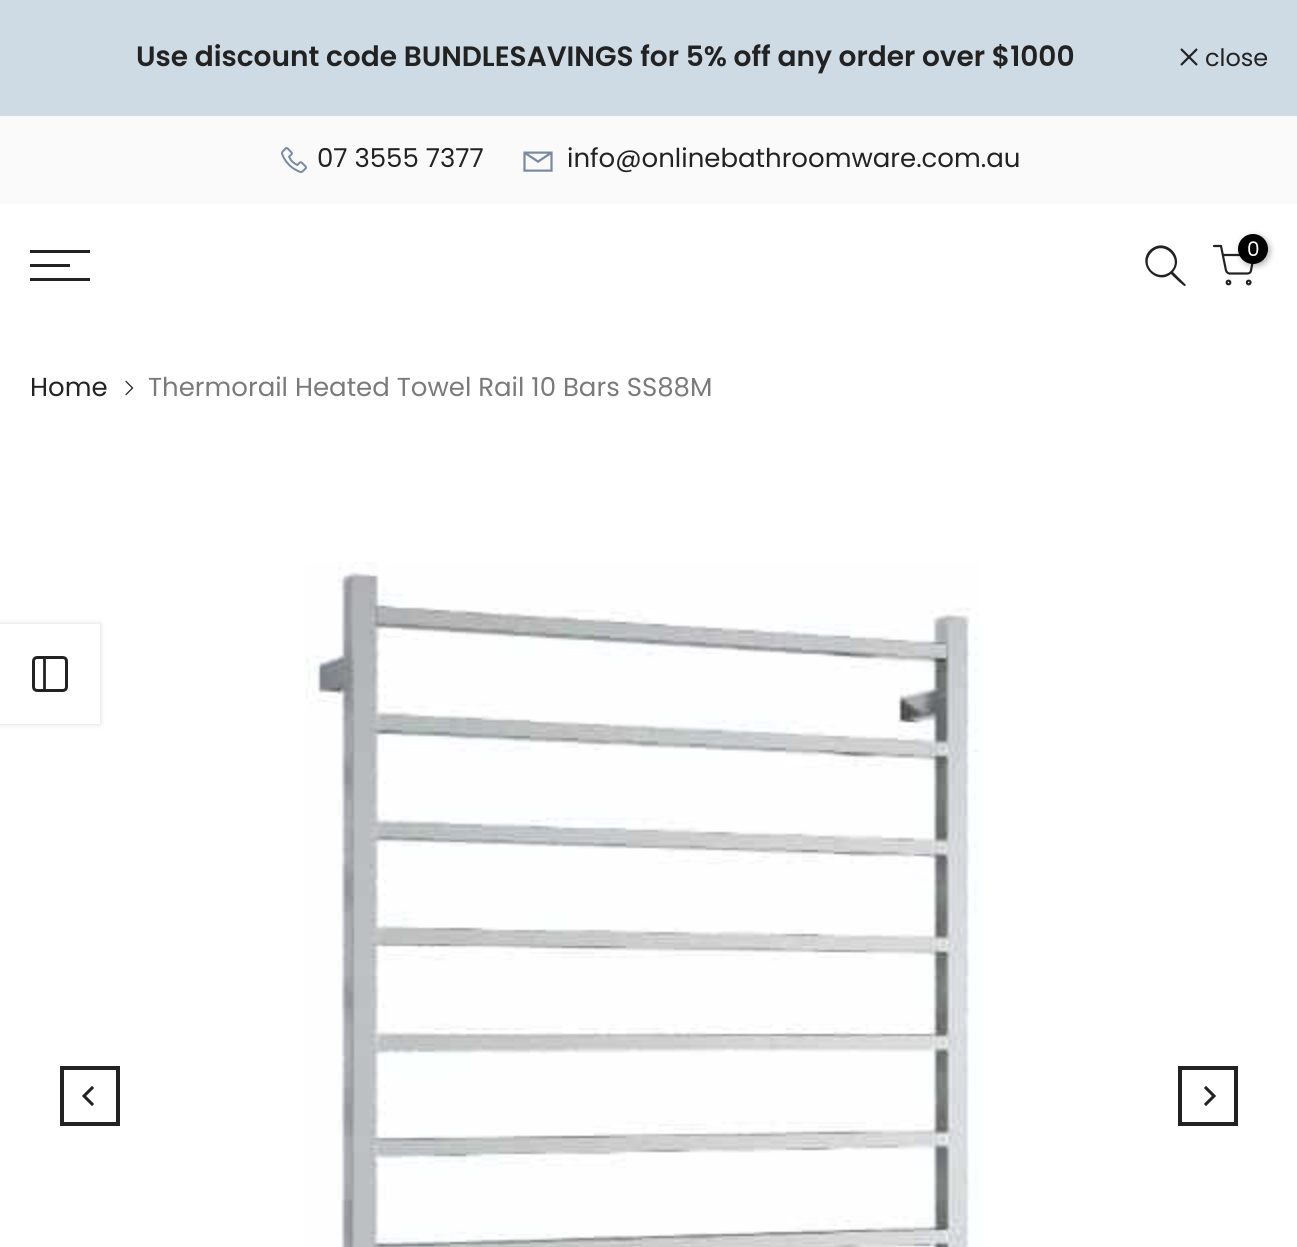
#include <cairo.h>
#include <math.h>
#include <stddef.h>

typedef struct { const char *family; double size; int italic, bold; unsigned color; } style_t;
static cairo_t *ctx;

static void ink(unsigned color) {
    cairo_set_source_rgb(ctx, (color >> 16) / 255.0, (color >> 8 & 255) / 255.0, (color & 255) / 255.0);
}

static void write(double x, double y, const char *s, const style_t *st) {
    cairo_select_font_face(ctx, st->family, st->italic ? CAIRO_FONT_SLANT_ITALIC : CAIRO_FONT_SLANT_NORMAL,
        st->bold ? CAIRO_FONT_WEIGHT_BOLD : CAIRO_FONT_WEIGHT_NORMAL);
    cairo_set_font_size(ctx, st->size);
    ink(st->color);
    cairo_move_to(ctx, x, y);
    cairo_show_text(ctx, s);
}

static void block(double x, double y, double w, double h, unsigned color) {
    ink(color);
    cairo_rectangle(ctx, x, y, w, h);
    cairo_fill(ctx);
}

static void round_path(double x, double y, double w, double h, double r) {
    cairo_new_sub_path(ctx);
    cairo_arc(ctx, x + w - r, y + h - r, r, 0, M_PI / 2);
    cairo_arc(ctx, x + r, y + h - r, r, M_PI / 2, M_PI);
    cairo_arc(ctx, x + r, y + r, r, M_PI, 1.5 * M_PI);
    cairo_arc(ctx, x + w - r, y + r, r, 1.5 * M_PI, 2 * M_PI);
    cairo_close_path(ctx);
}

static void blur_box(double x, double y, double w, double h, double r, double blur, double alpha) {
    cairo_push_group_with_content(ctx, CAIRO_CONTENT_ALPHA);
    cairo_set_operator(ctx, CAIRO_OPERATOR_SOURCE);
    for (int i = 15; i >= -15 && fmin(w, h) + blur * i / 3 > 0; i -= 2) {
        double e = blur * i / 6;
        cairo_set_source_rgba(ctx, 0, 0, 0, alpha * erfc((i - 1) / 8.5) / 2);
        round_path(x - e, y - e, w + 2 * e, h + 2 * e, fmax(0, fmin(r + e + blur * .6, fmin(w, h) / 2 + e)));
        cairo_fill(ctx);
    }
    cairo_pattern_t *soft = cairo_pop_group(ctx);
    cairo_mask(ctx, soft);
    cairo_pattern_destroy(soft);
}

static void paste(const char *path, double x, double y, double w, double h) {
    cairo_surface_t *image = cairo_image_surface_create_from_png(path);
    cairo_save(ctx);
    cairo_set_source_surface(ctx, image, x, y);
    cairo_rectangle(ctx, x, y, w, h);
    cairo_fill(ctx);
    cairo_restore(ctx);
    cairo_surface_destroy(image);
}

static const style_t s1 = {"Poppins SemiBold", 28, 0, 0, 0x222222};
static const style_t s2 = {"Poppins", 24, 0, 0, 0x222222};
static const style_t s3 = {"Poppins", 26, 0, 0, 0x222222};
static const style_t s4 = {"Poppins", 20, 0, 0, 0xffffff};
static const style_t s5 = {"Poppins", 26, 0, 0, 0x7a7a7a};

int main(void) {
    cairo_surface_t *surface = cairo_image_surface_create(CAIRO_FORMAT_RGB24, 1297, 1247);
    ctx = cairo_create(surface);
    cairo_font_options_t *options = cairo_font_options_create();
    cairo_font_options_set_hint_metrics(options, CAIRO_HINT_METRICS_OFF);
    cairo_font_options_set_hint_style(options, CAIRO_HINT_STYLE_NONE);
    cairo_set_font_options(ctx, options);
    cairo_set_miter_limit(ctx, 4);
    ink(0xffffff);
    cairo_paint(ctx);
    block(0, 0, 1297, 116, 0xcedbe5);
    write(136, 66, "Use discount code BUNDLESAVINGS for 5% off any order over $1000", &s1);
    cairo_new_path(ctx);
    cairo_move_to(ctx, 1197, 49);
    cairo_line_to(ctx, 1181, 65);
    cairo_move_to(ctx, 1197, 65);
    cairo_line_to(ctx, 1181, 49);
    cairo_set_line_width(ctx, 2.2);
    cairo_stroke(ctx);
    write(1205, 66, "close", &s2);
    block(0, 116, 1297, 88, 0xfafafa);
    paste("pic1.png", 281, 147, 26, 26);
    write(317, 167, "07 3555 7377", &s3);
    paste("pic2.png", 523, 151, 30, 21);
    write(567, 167, "info@onlinebathroomware.com.au", &s3);
    cairo_set_fill_rule(ctx, CAIRO_FILL_RULE_EVEN_ODD);
    cairo_new_path(ctx);
    cairo_move_to(ctx, 1171, 271);
    cairo_curve_to(ctx, 1158, 283, 1139, 265, 1152, 252);
    cairo_curve_to(ctx, 1164, 240, 1183, 259, 1171, 271);
    cairo_close_path(ctx);
    cairo_move_to(ctx, 1171, 274);
    cairo_curve_to(ctx, 1156, 286, 1136, 264, 1150, 250);
    cairo_curve_to(ctx, 1165, 236, 1186, 257, 1173, 272);
    cairo_line_to(ctx, 1186, 285);
    cairo_line_to(ctx, 1185, 286);
    cairo_curve_to(ctx, 1184, 287, 1173, 276, 1171, 274);
    cairo_close_path(ctx);
    cairo_fill(ctx);
    cairo_new_path(ctx);
    cairo_move_to(ctx, 1214, 246);
    cairo_line_to(ctx, 1221, 246);
    cairo_line_to(ctx, 1226, 270.5);
    cairo_curve_to(ctx, 1226.5, 272, 1228, 273.5, 1229.5, 273.5);
    cairo_line_to(ctx, 1247.5, 273.5);
    cairo_curve_to(ctx, 1249.5, 273.5, 1251, 272, 1251, 270.5);
    cairo_line_to(ctx, 1254, 255);
    cairo_line_to(ctx, 1223, 255);
    cairo_set_line_cap(ctx, CAIRO_LINE_CAP_ROUND);
    cairo_set_line_join(ctx, CAIRO_LINE_JOIN_ROUND);
    cairo_stroke(ctx);
    ink(0x000000);
    blur_box(1240, 236, 30, 30, 15, 3, 0.3);
    ink(0x000000);
    cairo_arc(ctx, 1253, 249, 15, 0, 2 * M_PI);
    cairo_fill(ctx);
    write(1247, 256, "0", &s4);
    cairo_new_path(ctx);
    cairo_arc(ctx, 1228.5, 282.5, 1.8, 0, 2 * M_PI);
    ink(0x222222);
    cairo_set_line_cap(ctx, CAIRO_LINE_CAP_BUTT);
    cairo_set_line_join(ctx, CAIRO_LINE_JOIN_MITER);
    cairo_stroke(ctx);
    cairo_arc(ctx, 1248.7, 282.5, 1.8, 0, 2 * M_PI);
    cairo_stroke(ctx);
    block(30, 250, 60, 3, 0x222222);
    block(30, 264, 40, 3, 0x222222);
    block(30, 278, 60, 3, 0x222222);
    write(30, 396, "Home", &s3);
    paste("pic3.png", 125, 380, 9, 16);
    write(148, 396, "Thermorail Heated Towel Rail 10 Bars SS88M", &s5);
    cairo_save(ctx);
    cairo_new_path(ctx);
    cairo_move_to(ctx, 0, 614);
    cairo_line_to(ctx, 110, 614);
    cairo_line_to(ctx, 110, 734);
    cairo_line_to(ctx, 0, 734);
    cairo_close_path(ctx);
    cairo_move_to(ctx, 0, 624);
    cairo_line_to(ctx, 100, 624);
    cairo_line_to(ctx, 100, 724);
    cairo_line_to(ctx, 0, 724);
    cairo_close_path(ctx);
    cairo_clip(ctx);
    ink(0x000000);
    blur_box(0, 624, 100, 100, 0, 3, 0.15);
    cairo_restore(ctx);
    round_path(33.5, 657.5, 33, 33, 3.5);
    ink(0x222222);
    cairo_set_line_width(ctx, 3);
    cairo_stroke(ctx);
    cairo_new_path(ctx);
    cairo_move_to(ctx, 44.5, 657.5);
    cairo_line_to(ctx, 44.5, 690.5);
    cairo_set_line_width(ctx, 2.8);
    cairo_set_line_cap(ctx, CAIRO_LINE_CAP_ROUND);
    cairo_set_line_join(ctx, CAIRO_LINE_JOIN_ROUND);
    cairo_stroke(ctx);
    cairo_rectangle(ctx, 62, 1068, 56, 56);
    cairo_set_line_width(ctx, 4);
    cairo_set_line_cap(ctx, CAIRO_LINE_CAP_BUTT);
    cairo_set_line_join(ctx, CAIRO_LINE_JOIN_MITER);
    cairo_stroke(ctx);
    paste("pic4.png", 82, 1086, 12, 20);
    paste("pic5.png", 305, 562, 674, 685);
    cairo_rectangle(ctx, 1180, 1068, 56, 56);
    cairo_stroke(ctx);
    paste("pic6.png", 1204, 1086, 12, 20);
    cairo_surface_write_to_png(surface, "screenshot.png");
    cairo_font_options_destroy(options);
    cairo_destroy(ctx);
    cairo_surface_destroy(surface);
    return 0;
}
